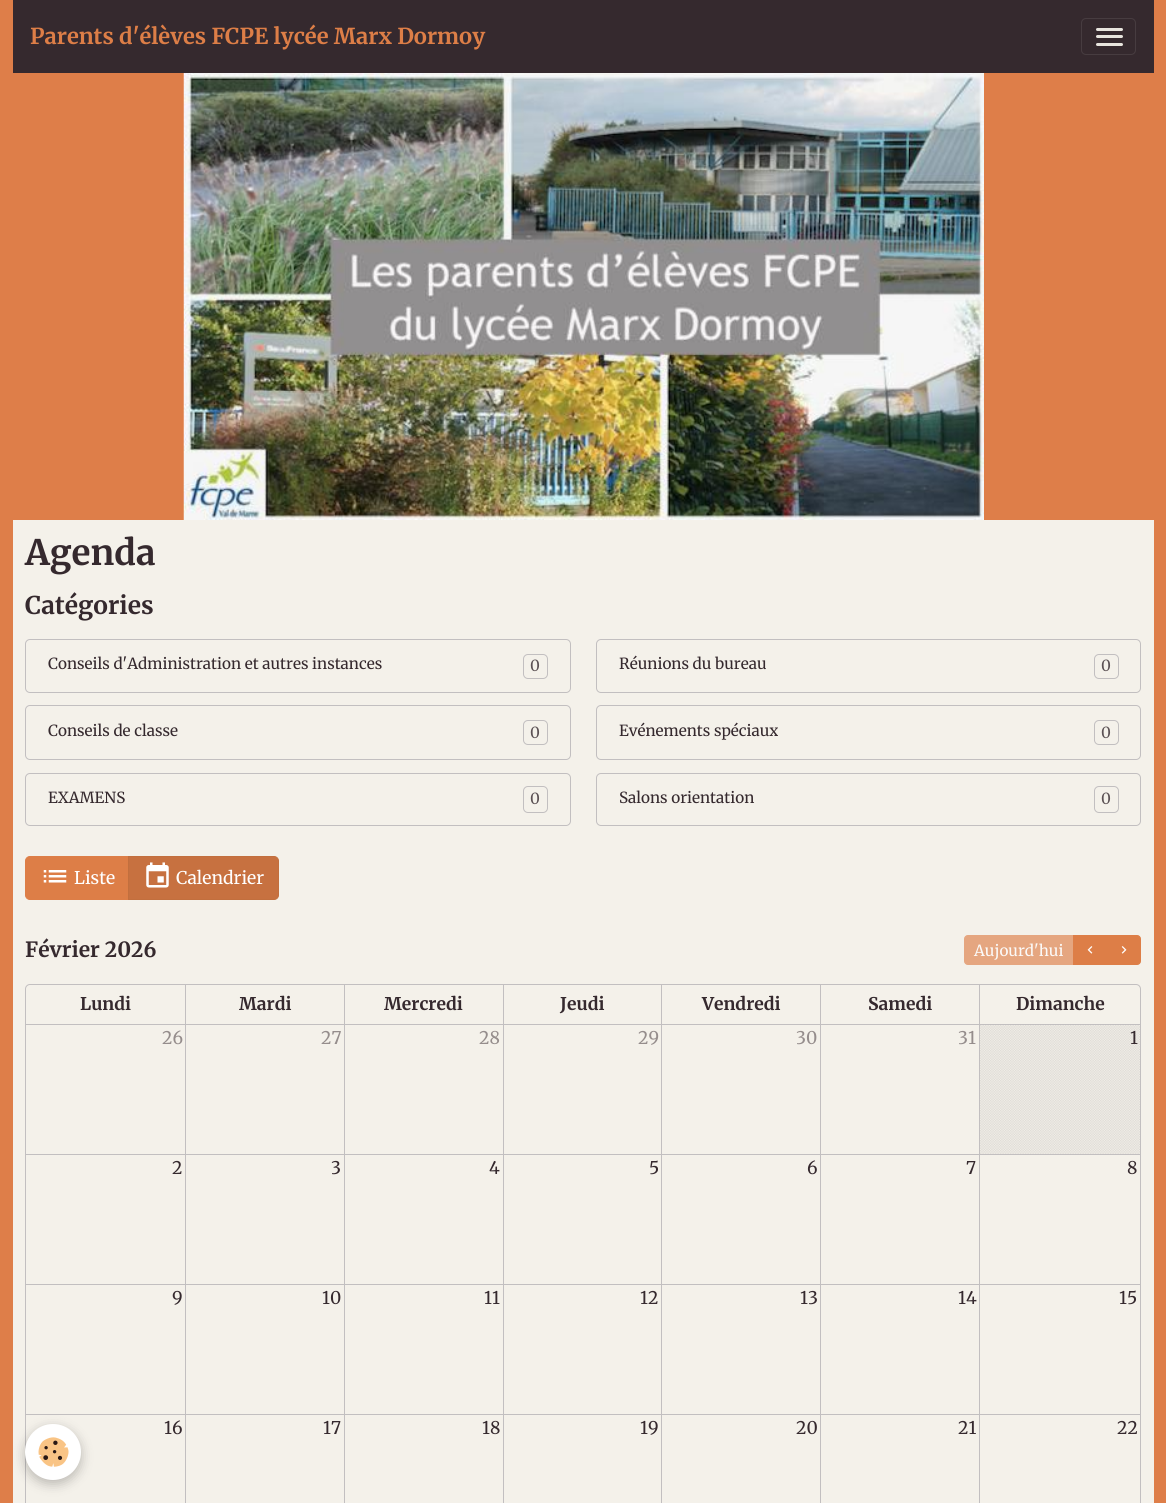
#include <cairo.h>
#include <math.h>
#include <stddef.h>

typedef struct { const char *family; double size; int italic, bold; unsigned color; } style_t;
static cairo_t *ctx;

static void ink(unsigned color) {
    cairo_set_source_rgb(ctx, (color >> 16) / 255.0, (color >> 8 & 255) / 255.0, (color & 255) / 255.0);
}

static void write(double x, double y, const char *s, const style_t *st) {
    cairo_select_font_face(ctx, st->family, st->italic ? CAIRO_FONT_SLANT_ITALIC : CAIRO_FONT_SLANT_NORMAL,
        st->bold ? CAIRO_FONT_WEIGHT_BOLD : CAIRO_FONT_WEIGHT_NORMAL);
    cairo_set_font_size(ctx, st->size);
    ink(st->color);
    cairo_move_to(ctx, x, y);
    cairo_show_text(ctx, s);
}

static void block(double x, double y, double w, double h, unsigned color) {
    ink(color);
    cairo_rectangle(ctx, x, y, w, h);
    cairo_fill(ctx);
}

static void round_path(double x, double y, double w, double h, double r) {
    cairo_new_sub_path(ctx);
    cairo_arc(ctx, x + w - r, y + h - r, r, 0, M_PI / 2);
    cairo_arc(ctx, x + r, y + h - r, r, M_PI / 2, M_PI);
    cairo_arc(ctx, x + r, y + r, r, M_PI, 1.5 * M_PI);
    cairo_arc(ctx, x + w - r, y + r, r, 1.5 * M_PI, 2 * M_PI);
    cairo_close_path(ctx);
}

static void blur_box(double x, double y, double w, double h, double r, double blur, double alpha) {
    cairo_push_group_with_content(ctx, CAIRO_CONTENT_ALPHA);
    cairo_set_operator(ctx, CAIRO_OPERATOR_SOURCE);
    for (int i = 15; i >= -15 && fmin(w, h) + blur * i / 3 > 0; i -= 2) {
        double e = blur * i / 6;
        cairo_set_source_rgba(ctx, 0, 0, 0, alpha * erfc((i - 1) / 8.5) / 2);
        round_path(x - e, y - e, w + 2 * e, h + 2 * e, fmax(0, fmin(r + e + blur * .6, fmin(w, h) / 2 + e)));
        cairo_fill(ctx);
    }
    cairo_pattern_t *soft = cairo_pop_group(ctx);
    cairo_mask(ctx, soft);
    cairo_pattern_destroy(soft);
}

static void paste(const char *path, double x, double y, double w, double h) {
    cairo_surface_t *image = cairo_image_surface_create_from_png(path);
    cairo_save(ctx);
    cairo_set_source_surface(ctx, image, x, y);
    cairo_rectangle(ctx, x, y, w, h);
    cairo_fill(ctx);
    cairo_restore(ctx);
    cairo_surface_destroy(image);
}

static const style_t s1 = {"Merriweather Light", 21.9, 0, 0, 0xdd7e47};
static const style_t s2 = {"Merriweather Light", 35, 0, 0, 0x35292e};
static const style_t s3 = {"Merriweather Light", 24.5, 0, 0, 0x35292e};
static const style_t s4 = {"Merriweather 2 Light", 15.3, 0, 0, 0x35292e};
static const style_t s5 = {"Merriweather 2 Light", 15.3, 0, 0, 0x5b5154};
static const style_t s6 = {"Merriweather 2 Light", 17.5, 0, 0, 0xffffff};
static const style_t s7 = {"Merriweather Light", 21, 0, 0, 0x35292e};
static const style_t s8 = {"Merriweather 2 Light", 15.3, 0, 0, 0xfbfaf8};
static const style_t s9 = {"Merriweather Light", 17.5, 0, 0, 0x35292e};
static const style_t s10 = {"Merriweather 2 Light", 17.5, 0, 0, 0x958d8c};
static const style_t s11 = {"Merriweather 2 Light", 17.5, 0, 0, 0x35292e};

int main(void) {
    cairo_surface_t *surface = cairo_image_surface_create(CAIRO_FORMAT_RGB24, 1166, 1503);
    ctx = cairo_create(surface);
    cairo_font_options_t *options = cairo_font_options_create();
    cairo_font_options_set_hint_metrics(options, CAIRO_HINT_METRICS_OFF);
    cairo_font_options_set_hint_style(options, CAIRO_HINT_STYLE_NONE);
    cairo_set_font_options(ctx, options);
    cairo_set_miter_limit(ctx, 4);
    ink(0xde7e49);
    cairo_paint(ctx);
    block(13, 0, 1141, 73, 0x35292e);
    write(30, 44, "Parents d'élèves FCPE lycée Marx Dormoy", &s1);
    round_path(1081.5, 18.5, 54, 36, 4.5);
    ink(0x473c40);
    cairo_set_line_width(ctx, 1);
    cairo_stroke(ctx);
    ink(0xe8e5de);
    round_path(1096, 28, 27, 3, 1.5);
    cairo_fill(ctx);
    round_path(1096, 35, 27, 3, 1.5);
    cairo_fill(ctx);
    round_path(1096, 43, 27, 3, 1.5);
    cairo_fill(ctx);
    paste("pic1.png", 183, 73, 801, 447);
    block(13, 520, 1141, 983, 0xf4f1ea);
    write(25, 565, "Agenda", &s2);
    write(25, 614, "Catégories", &s3);
    round_path(25.5, 639.5, 545, 53, 4.5);
    ink(0xc2bfc0);
    cairo_stroke(ctx);
    write(48, 669, "Conseils d'Administration et autres instances", &s4);
    round_path(523.5, 654.5, 24, 24, 4.5);
    ink(0xc2bfc0);
    cairo_stroke(ctx);
    write(530, 671, "0", &s5);
    round_path(596.5, 639.5, 544, 53, 4.5);
    ink(0xc2bfc0);
    cairo_stroke(ctx);
    write(619, 669, "Réunions du bureau", &s4);
    round_path(1094.5, 654.5, 24, 24, 4.5);
    ink(0xc2bfc0);
    cairo_stroke(ctx);
    write(1101, 671, "0", &s5);
    round_path(25.5, 705.5, 545, 54, 4.5);
    ink(0xc2bfc0);
    cairo_stroke(ctx);
    write(48, 736, "Conseils de classe", &s4);
    round_path(523.5, 720.5, 24, 24, 4.5);
    ink(0xc2bfc0);
    cairo_stroke(ctx);
    write(530, 738, "0", &s5);
    round_path(596.5, 705.5, 544, 54, 4.5);
    ink(0xc2bfc0);
    cairo_stroke(ctx);
    write(619, 736, "Evénements spéciaux", &s4);
    round_path(1094.5, 720.5, 24, 24, 4.5);
    ink(0xc2bfc0);
    cairo_stroke(ctx);
    write(1101, 738, "0", &s5);
    round_path(25.5, 773.5, 545, 52, 4.5);
    ink(0xc2bfc0);
    cairo_stroke(ctx);
    write(48, 803, "EXAMENS", &s4);
    round_path(523.5, 786.5, 24, 26, 4.5);
    ink(0xc2bfc0);
    cairo_stroke(ctx);
    write(530, 804, "0", &s5);
    round_path(596.5, 773.5, 544, 52, 4.5);
    ink(0xc2bfc0);
    cairo_stroke(ctx);
    write(619, 803, "Salons orientation", &s4);
    round_path(1094.5, 786.5, 24, 26, 4.5);
    ink(0xc2bfc0);
    cairo_stroke(ctx);
    write(1101, 804, "0", &s5);
    ink(0xdd7e47);
    cairo_new_path(ctx);
    cairo_move_to(ctx, 30, 856.5);
    cairo_line_to(ctx, 128.5, 856.5);
    cairo_line_to(ctx, 128.5, 899.5);
    cairo_line_to(ctx, 30, 899.5);
    cairo_curve_to(ctx, 27.5, 899.5, 25.5, 897.5, 25.5, 895);
    cairo_line_to(ctx, 25.5, 861);
    cairo_curve_to(ctx, 25.5, 858.5, 27.5, 856.5, 30, 856.5);
    cairo_close_path(ctx);
    cairo_fill_preserve(ctx);
    cairo_stroke(ctx);
    paste("pic2.png", 43, 870, 24, 13);
    write(74, 884, "Liste", &s6);
    ink(0xc77140);
    cairo_new_path(ctx);
    cairo_move_to(ctx, 128.5, 856.5);
    cairo_line_to(ctx, 274, 856.5);
    cairo_curve_to(ctx, 276.5, 856.5, 278.5, 858.5, 278.5, 861);
    cairo_line_to(ctx, 278.5, 895);
    cairo_curve_to(ctx, 278.5, 897.5, 276.5, 899.5, 274, 899.5);
    cairo_line_to(ctx, 128.5, 899.5);
    cairo_close_path(ctx);
    cairo_fill_preserve(ctx);
    ink(0xc26f3e);
    cairo_stroke(ctx);
    paste("pic3.png", 146, 862, 23, 26);
    write(176, 884, "Calendrier", &s6);
    write(25, 957, "Février 2026", &s7);
    ink(0xe5a680);
    cairo_new_path(ctx);
    cairo_move_to(ctx, 968, 935.5);
    cairo_line_to(ctx, 1073.5, 935.5);
    cairo_line_to(ctx, 1073.5, 964.5);
    cairo_line_to(ctx, 968, 964.5);
    cairo_curve_to(ctx, 966, 964.5, 964.5, 963, 964.5, 961);
    cairo_line_to(ctx, 964.5, 939);
    cairo_curve_to(ctx, 964.5, 937, 966, 935.5, 968, 935.5);
    cairo_close_path(ctx);
    cairo_fill_preserve(ctx);
    cairo_stroke(ctx);
    write(974, 956, "Aujourd'hui", &s8);
    block(1073, 935, 33, 30, 0xdd7e47);
    paste("pic4.png", 1087, 946, 6, 8);
    cairo_new_path(ctx);
    cairo_move_to(ctx, 1106.5, 935.5);
    cairo_line_to(ctx, 1137, 935.5);
    cairo_curve_to(ctx, 1139, 935.5, 1140.5, 937, 1140.5, 939);
    cairo_line_to(ctx, 1140.5, 961);
    cairo_curve_to(ctx, 1140.5, 963, 1139, 964.5, 1137, 964.5);
    cairo_line_to(ctx, 1106.5, 964.5);
    cairo_close_path(ctx);
    cairo_fill_preserve(ctx);
    cairo_stroke(ctx);
    paste("pic5.png", 1121, 946, 6, 8);
    round_path(25.5, 984.5, 1115, 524, 4.5);
    ink(0xc2bfc0);
    cairo_stroke(ctx);
    block(26, 1024, 1114, 1, 0xc2bfc0);
    write(80, 1010, "Lundi", &s9);
    block(185, 985, 1, 40, 0xc2bfc0);
    write(239, 1010, "Mardi", &s9);
    block(344, 985, 1, 40, 0xc2bfc0);
    write(384, 1010, "Mercredi", &s9);
    block(503, 985, 1, 40, 0xc2bfc0);
    write(560, 1010, "Jeudi", &s9);
    block(661, 985, 1, 40, 0xc2bfc0);
    write(702, 1010, "Vendredi", &s9);
    block(820, 985, 1, 40, 0xc2bfc0);
    write(868, 1010, "Samedi", &s9);
    block(979, 985, 1, 40, 0xc2bfc0);
    write(1016, 1010, "Dimanche", &s9);
    block(26, 1154, 1114, 1, 0xc2bfc0);
    write(162, 1044, "26", &s10);
    block(185, 1025, 1, 130, 0xc2bfc0);
    write(321, 1044, "27", &s10);
    block(344, 1025, 1, 130, 0xc2bfc0);
    write(479, 1044, "28", &s10);
    block(503, 1025, 1, 130, 0xc2bfc0);
    write(638, 1044, "29", &s10);
    block(661, 1025, 1, 130, 0xc2bfc0);
    write(796, 1044, "30", &s10);
    block(820, 1025, 1, 130, 0xc2bfc0);
    write(958, 1044, "31", &s10);
    paste("pic6.png", 980, 1025, 160, 129);
    block(979, 1025, 1, 130, 0xc2bfc0);
    write(1130, 1044, "1", &s11);
    block(26, 1284, 1114, 1, 0xc2bfc0);
    write(172, 1174, "2", &s11);
    block(185, 1155, 1, 130, 0xc2bfc0);
    write(331, 1174, "3", &s11);
    block(344, 1155, 1, 130, 0xc2bfc0);
    write(489, 1174, "4", &s11);
    block(503, 1155, 1, 130, 0xc2bfc0);
    write(649, 1174, "5", &s11);
    block(661, 1155, 1, 130, 0xc2bfc0);
    write(807, 1174, "6", &s11);
    block(820, 1155, 1, 130, 0xc2bfc0);
    write(966, 1174, "7", &s11);
    block(979, 1155, 1, 130, 0xc2bfc0);
    write(1127, 1174, "8", &s11);
    block(26, 1414, 1114, 1, 0xc2bfc0);
    write(172, 1304, "9", &s11);
    block(185, 1285, 1, 218, 0xc2bfc0);
    write(322, 1304, "10", &s11);
    block(344, 1285, 1, 218, 0xc2bfc0);
    write(484, 1304, "11", &s11);
    block(503, 1285, 1, 218, 0xc2bfc0);
    write(640, 1304, "12", &s11);
    block(661, 1285, 1, 218, 0xc2bfc0);
    write(800, 1304, "13", &s11);
    block(820, 1285, 1, 218, 0xc2bfc0);
    write(958, 1304, "14", &s11);
    block(979, 1285, 1, 218, 0xc2bfc0);
    write(1119, 1304, "15", &s11);
    write(164, 1434, "16", &s11);
    write(323, 1434, "17", &s11);
    write(482, 1434, "18", &s11);
    write(640, 1434, "19", &s11);
    write(796, 1434, "20", &s11);
    write(958, 1434, "21", &s11);
    write(1117, 1434, "22", &s11);
    ink(0x000000);
    blur_box(25, 1428, 56, 56, 28, 6, 0.24);
    ink(0xffffff);
    cairo_arc(ctx, 53, 1452, 28, 0, 2 * M_PI);
    cairo_fill(ctx);
    paste("pic7.png", 38, 1437, 31, 30);
    cairo_surface_write_to_png(surface, "screenshot.png");
    cairo_font_options_destroy(options);
    cairo_destroy(ctx);
    cairo_surface_destroy(surface);
    return 0;
}
